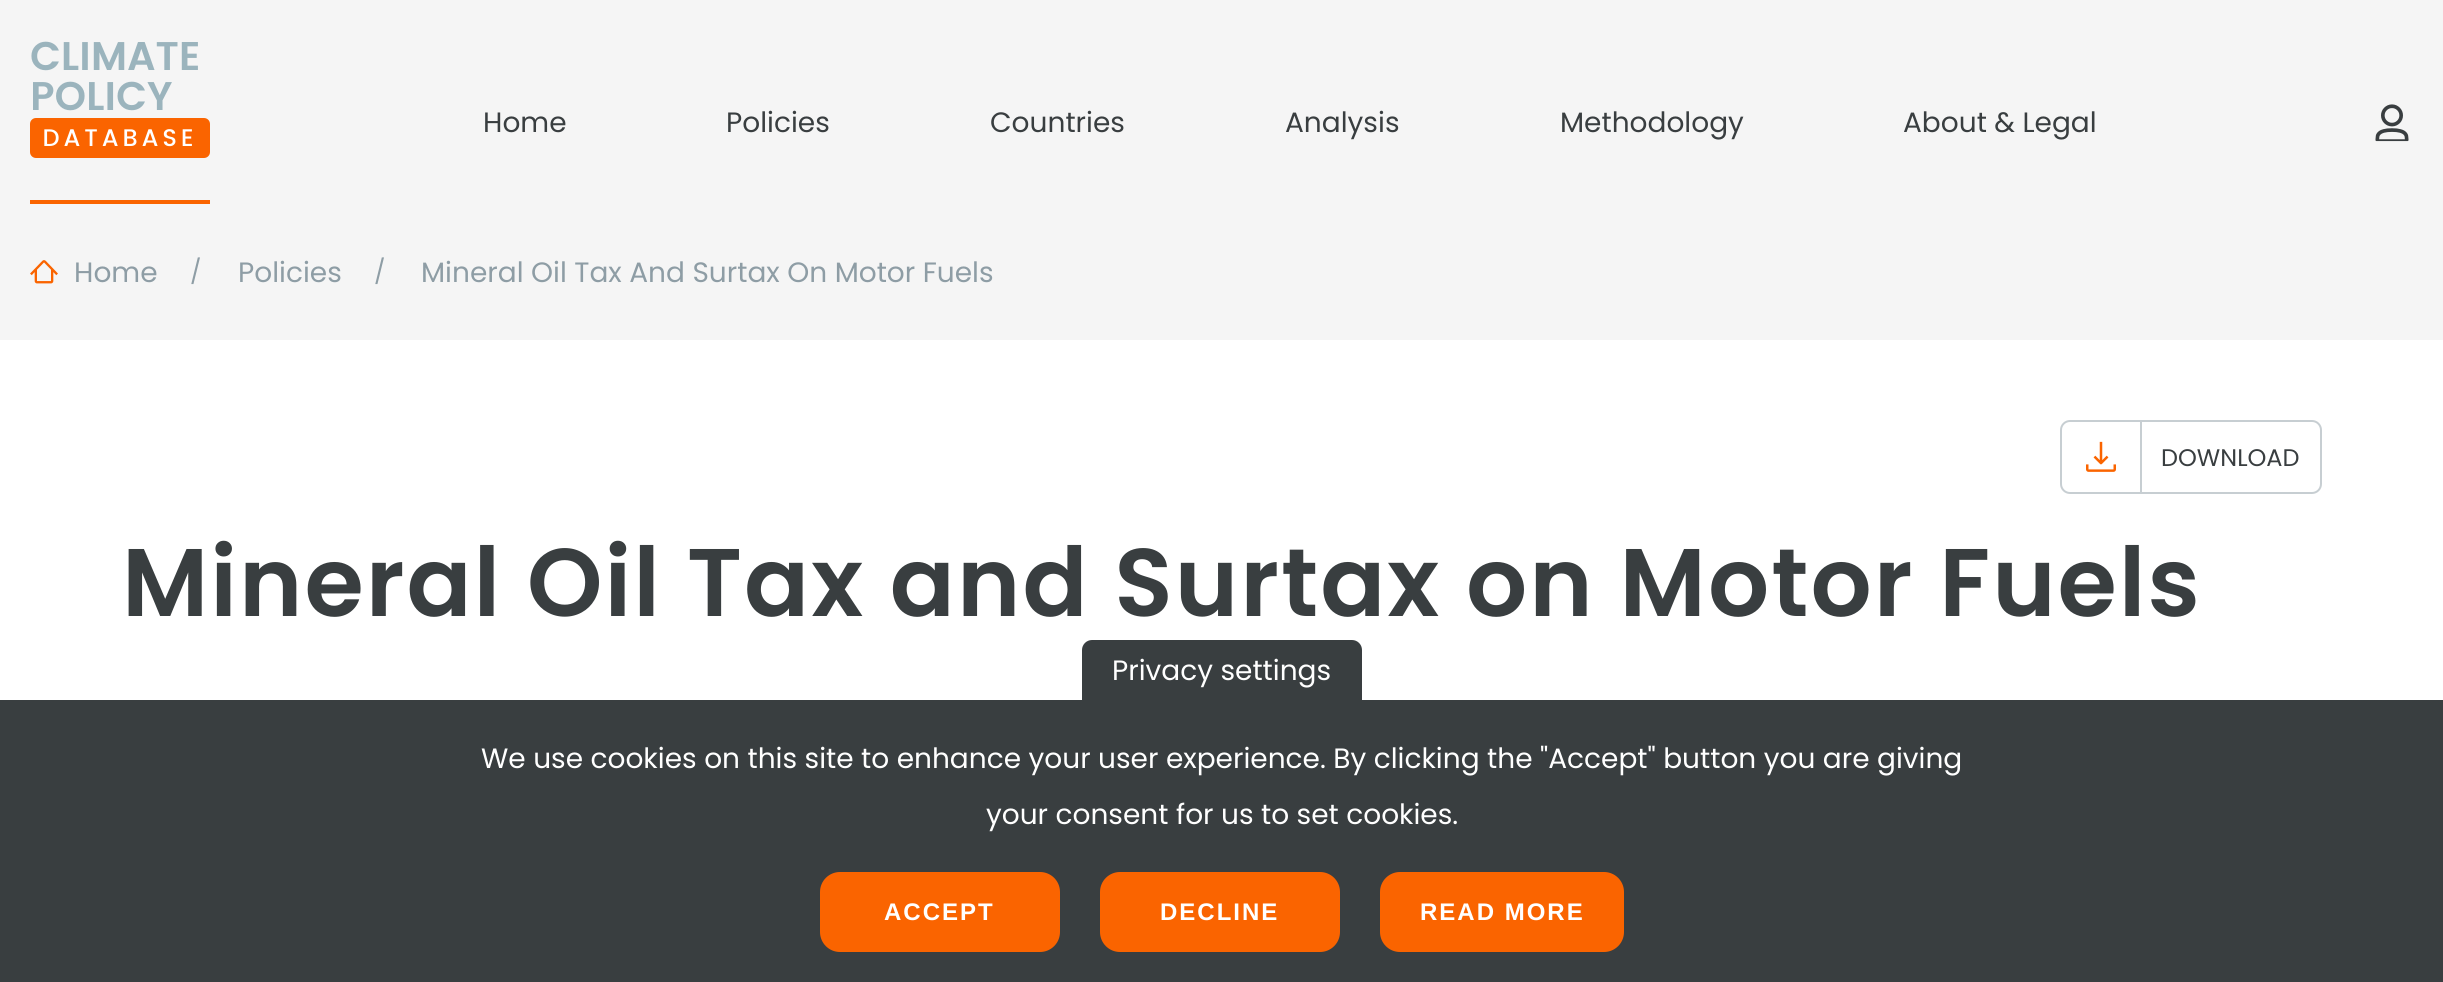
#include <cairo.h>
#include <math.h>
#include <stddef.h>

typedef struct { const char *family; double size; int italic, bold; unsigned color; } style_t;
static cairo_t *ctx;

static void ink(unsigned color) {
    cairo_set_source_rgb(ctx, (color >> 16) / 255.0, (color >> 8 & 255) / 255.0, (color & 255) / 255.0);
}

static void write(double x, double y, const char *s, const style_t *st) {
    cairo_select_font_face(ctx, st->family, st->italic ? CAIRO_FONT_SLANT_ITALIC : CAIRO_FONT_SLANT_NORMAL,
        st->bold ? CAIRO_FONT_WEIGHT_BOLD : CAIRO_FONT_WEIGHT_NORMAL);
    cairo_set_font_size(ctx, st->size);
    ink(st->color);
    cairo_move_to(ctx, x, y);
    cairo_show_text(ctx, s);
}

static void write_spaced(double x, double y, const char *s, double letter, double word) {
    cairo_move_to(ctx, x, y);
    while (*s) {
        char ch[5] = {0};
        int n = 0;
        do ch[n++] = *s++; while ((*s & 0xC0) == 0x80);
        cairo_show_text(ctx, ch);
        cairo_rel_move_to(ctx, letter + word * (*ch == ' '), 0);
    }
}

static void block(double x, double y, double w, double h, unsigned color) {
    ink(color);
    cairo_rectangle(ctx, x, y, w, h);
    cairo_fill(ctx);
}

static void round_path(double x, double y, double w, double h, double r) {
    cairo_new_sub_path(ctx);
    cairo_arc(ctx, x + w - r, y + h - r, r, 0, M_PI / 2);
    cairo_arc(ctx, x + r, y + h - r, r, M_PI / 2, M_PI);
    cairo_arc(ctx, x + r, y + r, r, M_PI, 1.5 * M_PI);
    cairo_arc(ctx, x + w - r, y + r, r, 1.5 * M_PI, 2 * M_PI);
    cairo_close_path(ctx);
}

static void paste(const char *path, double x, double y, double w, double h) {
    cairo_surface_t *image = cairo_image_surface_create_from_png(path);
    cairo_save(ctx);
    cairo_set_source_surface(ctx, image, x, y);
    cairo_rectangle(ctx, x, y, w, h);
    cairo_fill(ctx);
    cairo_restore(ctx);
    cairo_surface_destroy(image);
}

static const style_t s1 = {"Poppins", 28, 0, 0, 0x393e40};
static const style_t s2 = {"Poppins", 28, 0, 0, 0x8e9da5};
static const style_t s3 = {"Poppins", 24, 0, 0, 0x8e9da5};
static const style_t s4 = {"Poppins", 24, 0, 0, 0x393e40};
static const style_t s5 = {"Poppins", 28, 0, 0, 0xffffff};

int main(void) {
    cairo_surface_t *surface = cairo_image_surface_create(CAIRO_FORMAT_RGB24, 2443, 982);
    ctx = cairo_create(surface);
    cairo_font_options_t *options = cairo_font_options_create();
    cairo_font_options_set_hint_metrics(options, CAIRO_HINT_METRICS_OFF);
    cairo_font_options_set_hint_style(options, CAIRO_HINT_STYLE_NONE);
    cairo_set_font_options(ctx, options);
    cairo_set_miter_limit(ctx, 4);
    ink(0xffffff);
    cairo_paint(ctx);
    block(0, 0, 2443, 340, 0xf5f5f5);
    paste("pic1.png", 30, 41, 180, 117);
    block(30, 200, 180, 4, 0xfa6400);
    write(483, 132, "Home", &s1);
    write(726, 132, "Policies", &s1);
    write(990, 132, "Countries", &s1);
    write(1285, 132, "Analysis", &s1);
    write(1560, 132, "Methodology", &s1);
    write(1903, 132, "About & Legal", &s1);
    paste("pic2.png", 2375, 104, 34, 38);
    paste("pic3.png", 30, 260, 28, 24);
    write(74, 282, "Home", &s2);
    write(190, 280, "/", &s3);
    write(238, 282, "Policies", &s2);
    write(374, 280, "/", &s3);
    write(421, 282, "Mineral Oil Tax And Surtax On Motor Fuels", &s2);
    round_path(2061, 421, 260, 72, 9);
    ink(0xc7ced2);
    cairo_stroke(ctx);
    block(2140, 422, 2, 70, 0xc7ced2);
    paste("pic4.png", 2086, 441, 30, 31);
    write(2161, 466, "DOWNLOAD", &s4);
    cairo_select_font_face(ctx, "Poppins SemiBold", CAIRO_FONT_SLANT_NORMAL, CAIRO_FONT_WEIGHT_NORMAL);
    cairo_set_font_size(ctx, 96);
    write_spaced(122, 616, "Mineral Oil Tax and Surtax on Motor Fuels", 2, 0);
    block(0, 700, 2443, 282, 0x393e40);
    cairo_new_path(ctx);
    cairo_move_to(ctx, 1092, 640);
    cairo_line_to(ctx, 1352, 640);
    cairo_curve_to(ctx, 1357.5, 640, 1362, 644.5, 1362, 650);
    cairo_line_to(ctx, 1362, 700);
    cairo_line_to(ctx, 1082, 700);
    cairo_line_to(ctx, 1082, 650);
    cairo_curve_to(ctx, 1082, 644.5, 1086.5, 640, 1092, 640);
    cairo_close_path(ctx);
    cairo_fill(ctx);
    write(1112, 680, "Privacy settings", &s5);
    write(481, 768, "We use cookies on this site to enhance your user experience. By clicking the \"Accept\" button you are giving", &s5);
    write(986, 824, "your consent for us to set cookies.", &s5);
    ink(0xfa6400);
    round_path(820, 872, 240, 80, 20);
    cairo_fill(ctx);
    cairo_select_font_face(ctx, "Liberation Sans", CAIRO_FONT_SLANT_NORMAL, CAIRO_FONT_WEIGHT_BOLD);
    cairo_set_font_size(ctx, 24);
    ink(0xffffff);
    write_spaced(884, 920, "ACCEPT", 2, 0);
    ink(0xfa6400);
    round_path(1100, 872, 240, 80, 20);
    cairo_fill(ctx);
    ink(0xffffff);
    write_spaced(1160, 920, "DECLINE", 2, 0);
    ink(0xfa6400);
    round_path(1380, 872, 244, 80, 20);
    cairo_fill(ctx);
    ink(0xffffff);
    write_spaced(1420, 920, "READ MORE", 2, 0);
    cairo_surface_write_to_png(surface, "screenshot.png");
    cairo_font_options_destroy(options);
    cairo_destroy(ctx);
    cairo_surface_destroy(surface);
    return 0;
}
